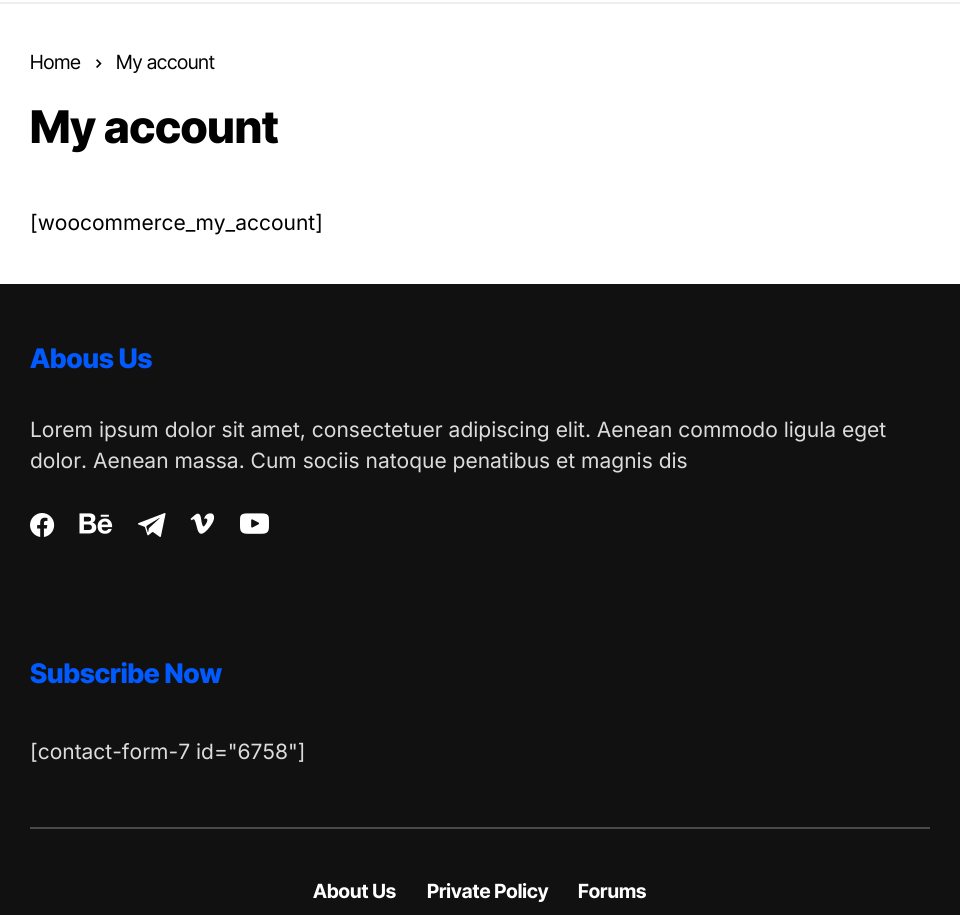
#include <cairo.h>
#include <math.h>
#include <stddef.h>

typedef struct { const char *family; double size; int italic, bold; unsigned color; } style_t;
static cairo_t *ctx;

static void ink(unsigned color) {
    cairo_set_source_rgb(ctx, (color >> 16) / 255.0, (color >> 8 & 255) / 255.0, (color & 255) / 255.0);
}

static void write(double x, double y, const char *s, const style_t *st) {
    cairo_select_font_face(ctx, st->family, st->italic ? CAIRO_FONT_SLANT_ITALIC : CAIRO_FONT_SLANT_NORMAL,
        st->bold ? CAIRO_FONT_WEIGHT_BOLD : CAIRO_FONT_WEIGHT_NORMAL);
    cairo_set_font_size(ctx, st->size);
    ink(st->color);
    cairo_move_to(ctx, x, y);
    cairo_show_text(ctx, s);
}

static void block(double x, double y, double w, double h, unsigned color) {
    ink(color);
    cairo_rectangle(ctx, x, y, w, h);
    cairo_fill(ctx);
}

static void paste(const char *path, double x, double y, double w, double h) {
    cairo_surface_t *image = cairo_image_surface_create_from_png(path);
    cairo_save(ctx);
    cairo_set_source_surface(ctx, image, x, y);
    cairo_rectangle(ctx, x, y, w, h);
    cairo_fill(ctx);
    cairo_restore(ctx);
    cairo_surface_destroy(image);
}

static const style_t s1 = {"Inter Tight", 19.5, 0, 0, 0x000000};
static const style_t s2 = {"Inter Tight ExtraBold", 45, 0, 0, 0x000000};
static const style_t s3 = {"Inter", 21, 0, 0, 0x000000};
static const style_t s4 = {"Inter Tight ExtraBold", 27, 0, 0, 0x005aff};
static const style_t s5 = {"Inter", 21, 0, 0, 0xdcdcdc};
static const style_t s6 = {"Inter Tight", 19.5, 0, 1, 0xffffff};

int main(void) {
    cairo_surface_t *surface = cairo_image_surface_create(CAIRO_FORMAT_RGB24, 960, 915);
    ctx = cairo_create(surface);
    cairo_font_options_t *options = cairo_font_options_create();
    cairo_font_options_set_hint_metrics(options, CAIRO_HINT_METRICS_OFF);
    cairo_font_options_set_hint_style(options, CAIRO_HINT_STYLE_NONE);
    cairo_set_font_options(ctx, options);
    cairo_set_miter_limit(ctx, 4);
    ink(0xffffff);
    cairo_paint(ctx);
    block(0, 2, 960, 2, 0xeeeeee);
    write(30, 69, "Home", &s1);
    paste("pic1.png", 96, 59, 6, 9);
    write(116, 69, "My account", &s1);
    write(30, 143, "My account", &s2);
    write(30, 230, "[woocommerce_my_account]", &s3);
    block(0, 284, 960, 631, 0x111111);
    write(30, 368, "Abous Us", &s4);
    write(30, 437, "Lorem ipsum dolor sit amet, consectetuer adipiscing elit. Aenean commodo ligula eget", &s5);
    write(30, 468, "dolor. Aenean massa. Cum sociis natoque penatibus et magnis dis", &s5);
    paste("pic2.png", 30, 513, 25, 24);
    paste("pic3.png", 79, 513, 34, 21);
    paste("pic4.png", 138, 513, 28, 24);
    paste("pic5.png", 190, 513, 25, 21);
    paste("pic6.png", 240, 513, 29, 21);
    write(30, 683, "Subscribe Now", &s4);
    write(30, 759, "[contact-form-7 id=\"6758\"]", &s5);
    block(30, 827, 900, 2, 0x49494b);
    write(313, 898, "About Us", &s6);
    write(427, 898, "Private Policy", &s6);
    write(578, 898, "Forums", &s6);
    cairo_surface_write_to_png(surface, "screenshot.png");
    cairo_font_options_destroy(options);
    cairo_destroy(ctx);
    cairo_surface_destroy(surface);
    return 0;
}
